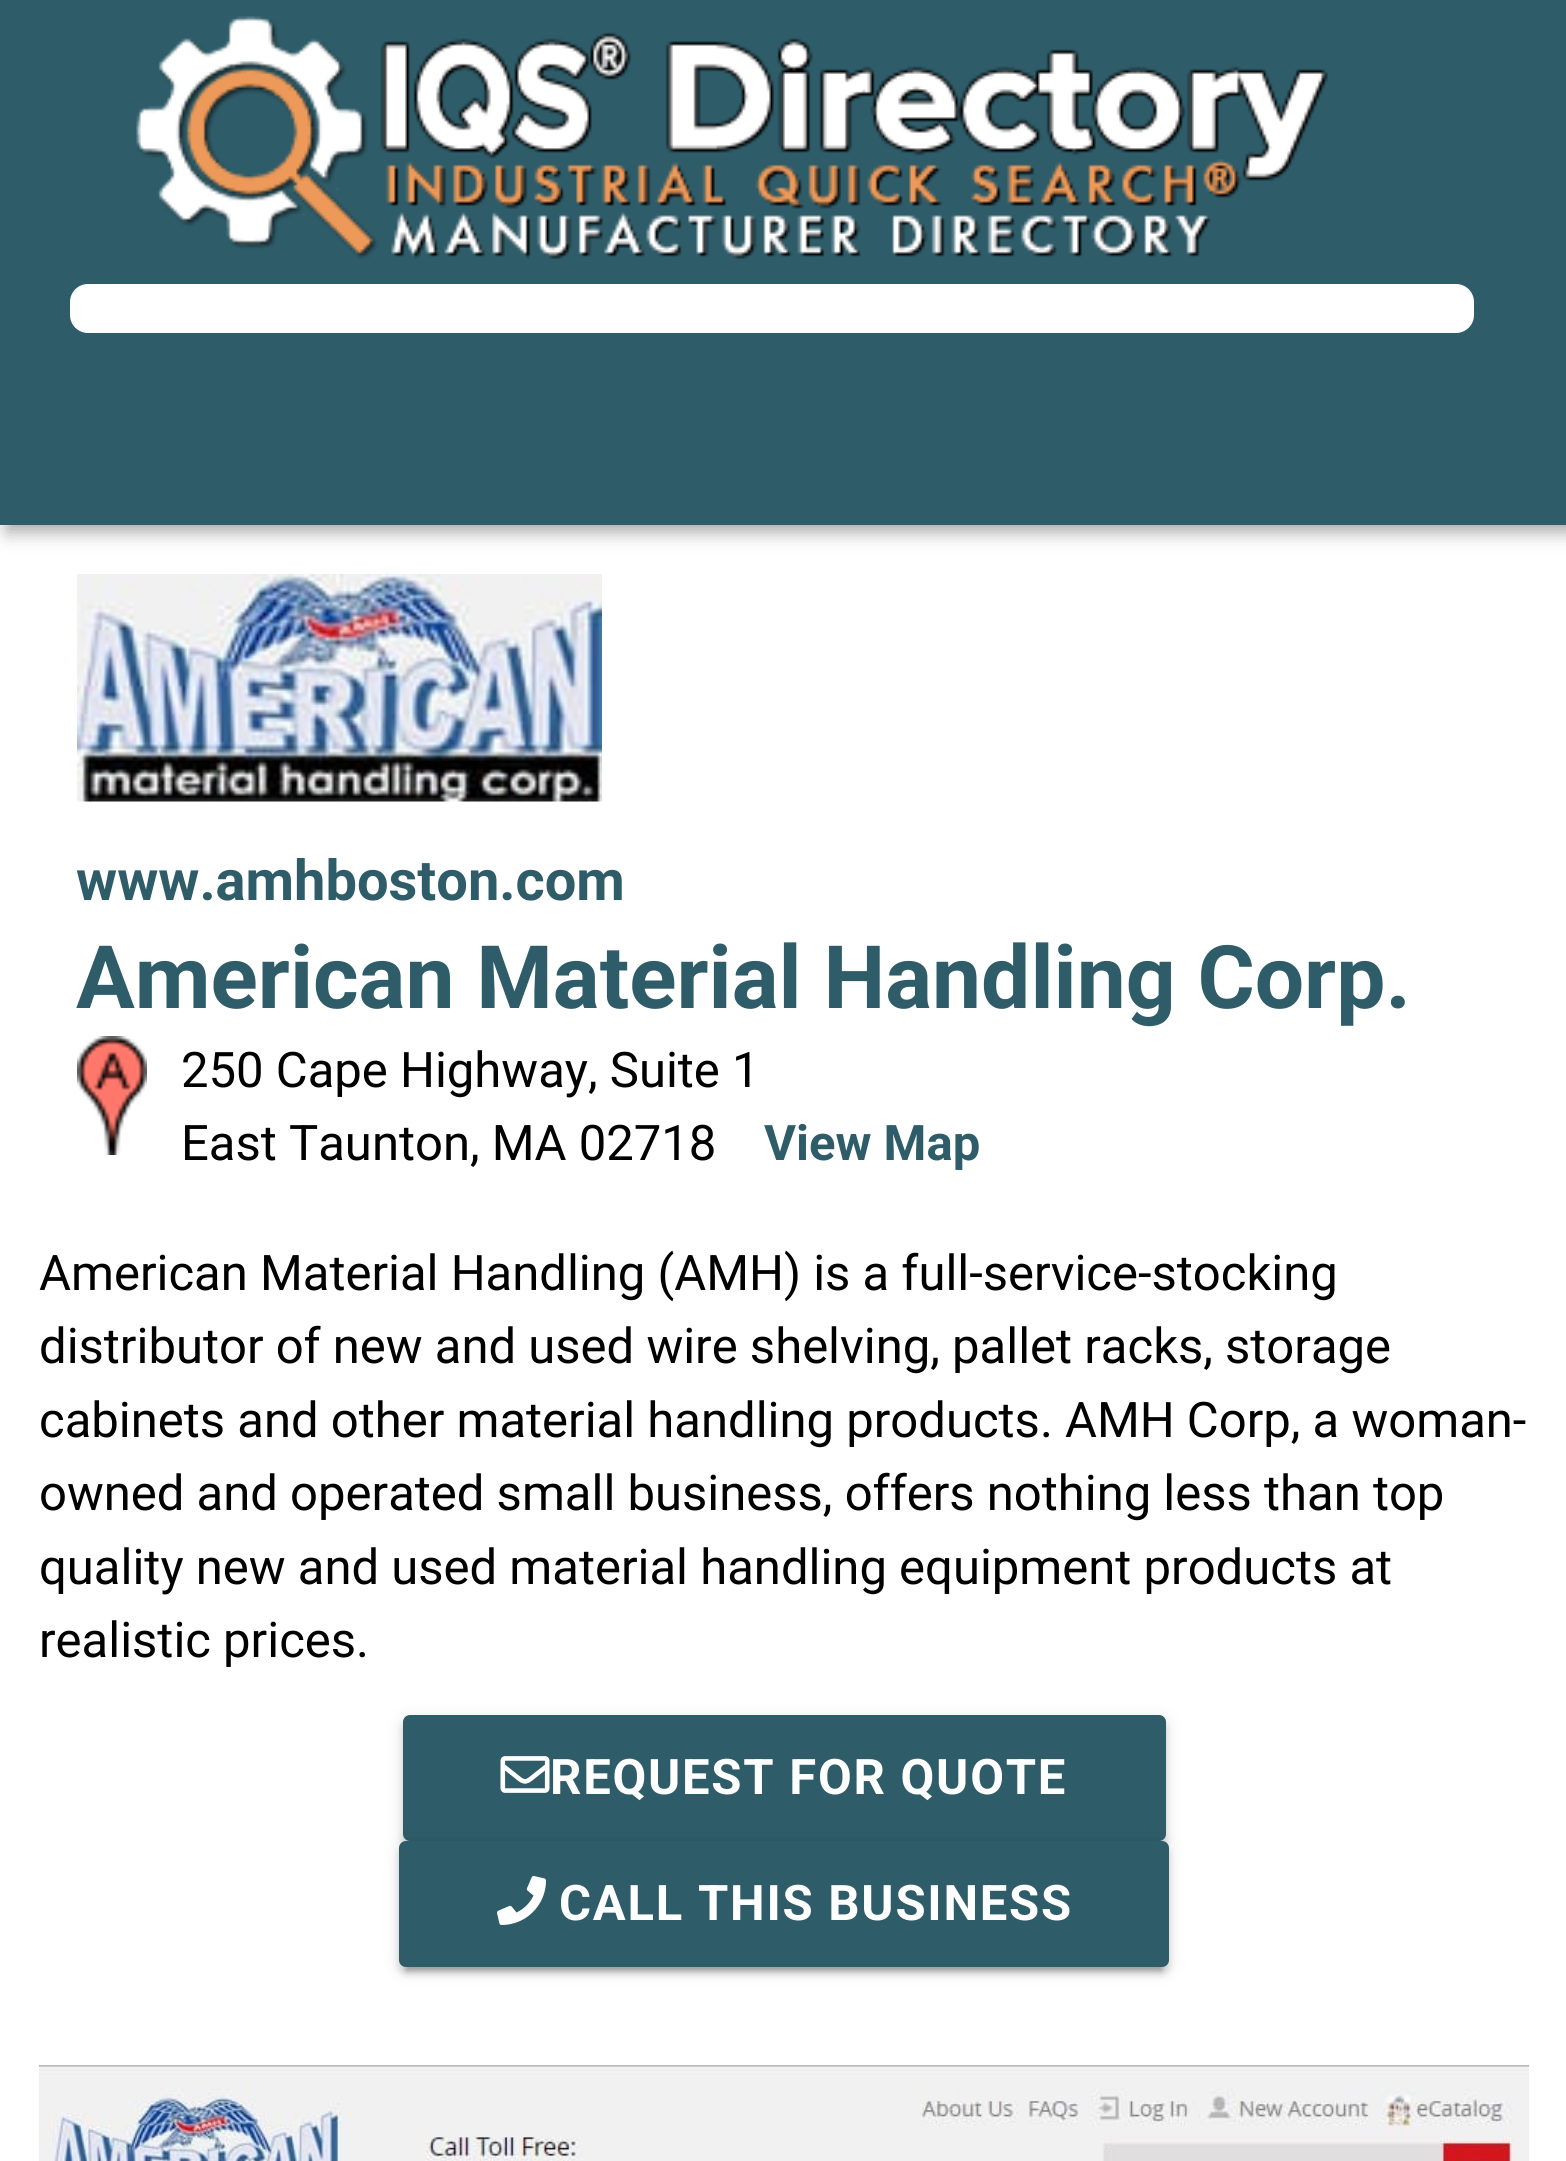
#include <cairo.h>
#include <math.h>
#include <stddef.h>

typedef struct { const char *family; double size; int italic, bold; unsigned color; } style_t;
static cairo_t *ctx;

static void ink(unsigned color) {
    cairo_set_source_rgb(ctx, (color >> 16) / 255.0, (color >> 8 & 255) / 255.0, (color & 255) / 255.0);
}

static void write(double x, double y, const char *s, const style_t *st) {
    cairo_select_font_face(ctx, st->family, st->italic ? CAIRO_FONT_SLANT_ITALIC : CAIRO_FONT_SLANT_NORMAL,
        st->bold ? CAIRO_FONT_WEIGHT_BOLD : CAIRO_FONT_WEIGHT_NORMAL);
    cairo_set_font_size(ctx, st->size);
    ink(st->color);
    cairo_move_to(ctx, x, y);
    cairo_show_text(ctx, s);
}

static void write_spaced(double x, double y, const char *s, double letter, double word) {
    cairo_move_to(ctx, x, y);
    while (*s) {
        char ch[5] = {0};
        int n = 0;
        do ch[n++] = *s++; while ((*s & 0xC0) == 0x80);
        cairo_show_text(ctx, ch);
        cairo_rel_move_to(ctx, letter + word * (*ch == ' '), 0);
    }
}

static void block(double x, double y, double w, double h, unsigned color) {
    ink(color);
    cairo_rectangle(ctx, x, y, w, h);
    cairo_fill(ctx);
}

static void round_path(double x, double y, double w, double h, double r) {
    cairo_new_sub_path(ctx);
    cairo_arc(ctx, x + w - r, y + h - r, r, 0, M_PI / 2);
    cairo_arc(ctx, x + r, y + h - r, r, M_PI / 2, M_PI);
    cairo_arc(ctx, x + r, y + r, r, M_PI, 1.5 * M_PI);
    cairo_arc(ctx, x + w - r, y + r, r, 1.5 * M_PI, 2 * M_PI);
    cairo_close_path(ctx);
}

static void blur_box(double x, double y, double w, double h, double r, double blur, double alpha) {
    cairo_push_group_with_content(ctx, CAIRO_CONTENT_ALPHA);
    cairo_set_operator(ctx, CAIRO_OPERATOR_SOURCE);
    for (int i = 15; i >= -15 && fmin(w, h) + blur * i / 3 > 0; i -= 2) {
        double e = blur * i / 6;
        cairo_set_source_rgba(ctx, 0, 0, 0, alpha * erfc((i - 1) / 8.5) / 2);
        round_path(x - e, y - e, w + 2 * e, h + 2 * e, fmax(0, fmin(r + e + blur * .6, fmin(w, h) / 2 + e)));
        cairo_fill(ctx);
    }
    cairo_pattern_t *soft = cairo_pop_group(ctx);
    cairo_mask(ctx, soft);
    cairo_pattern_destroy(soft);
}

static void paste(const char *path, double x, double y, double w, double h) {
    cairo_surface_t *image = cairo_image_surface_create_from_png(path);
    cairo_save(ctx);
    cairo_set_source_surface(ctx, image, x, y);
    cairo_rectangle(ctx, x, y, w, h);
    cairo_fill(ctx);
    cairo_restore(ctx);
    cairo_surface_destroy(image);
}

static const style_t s1 = {"Roboto", 56, 0, 1, 0x2e5c69};
static const style_t s2 = {"Roboto", 87.5, 0, 1, 0x2e5c69};
static const style_t s3 = {"Roboto", 49, 0, 0, 0x000000};
static const style_t s4 = {"Roboto", 49, 0, 1, 0x2e5c69};

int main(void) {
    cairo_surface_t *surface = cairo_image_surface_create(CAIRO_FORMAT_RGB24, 1566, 2161);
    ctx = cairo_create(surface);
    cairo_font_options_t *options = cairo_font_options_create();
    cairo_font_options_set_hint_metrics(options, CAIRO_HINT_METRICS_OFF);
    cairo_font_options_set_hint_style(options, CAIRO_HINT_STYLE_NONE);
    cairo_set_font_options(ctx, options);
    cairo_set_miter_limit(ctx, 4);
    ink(0xffffff);
    cairo_paint(ctx);
    ink(0x323232);
    blur_box(7, 7, 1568, 525, 0, 9, 0.43);
    block(0, 0, 1566, 525, 0x2e5c69);
    paste("pic1.png", 136, 16, 1192, 243);
    ink(0xffffff);
    round_path(70, 284, 1404, 49, 18);
    cairo_fill(ctx);
    paste("pic2.png", 77, 574, 525, 228);
    write(76, 900, "www.amhboston.com", &s1);
    write(76, 1008, "American Material Handling Corp.", &s2);
    paste("pic3.png", 77, 1036, 70, 119);
    write(181, 1087, "250 Cape Highway, Suite 1", &s3);
    write(181, 1160, "East Taunton, MA 02718", &s3);
    write(764, 1160, "View Map", &s4);
    write(39, 1290, "American Material Handling (AMH) is a full-service-stocking", &s3);
    write(39, 1363, "distributor of new and used wire shelving, pallet racks, storage", &s3);
    write(39, 1437, "cabinets and other material handling products. AMH Corp, a woman-", &s3);
    write(39, 1510, "owned and operated small business, offers nothing less than top", &s3);
    write(39, 1584, "quality new and used material handling equipment products at", &s3);
    write(39, 1657, "realistic prices.", &s3);
    ink(0x000000);
    blur_box(403, 1719, 763, 126, 7, 9, 0.12);
    blur_box(403, 1722, 763, 126, 7, 3.5, 0.14);
    ink(0x2e5c69);
    round_path(403, 1715, 763, 126, 7);
    cairo_fill(ctx);
    paste("pic4.png", 500, 1756, 50, 37);
    cairo_select_font_face(ctx, "Roboto", CAIRO_FONT_SLANT_NORMAL, CAIRO_FONT_WEIGHT_BOLD);
    ink(0xffffff);
    write_spaced(550, 1794, "REQUEST FOR QUOTE", 1.75, 0);
    ink(0x000000);
    blur_box(406, 1859, 756, 112, 0, 2, 0.2);
    blur_box(399, 1845, 770, 126, 7, 9, 0.12);
    blur_box(399, 1848, 770, 126, 7, 3.5, 0.14);
    ink(0x2e5c69);
    round_path(399, 1841, 770, 126, 7);
    cairo_fill(ctx);
    paste("pic5.png", 497, 1876, 49, 49);
    ink(0xffffff);
    write_spaced(559, 1920, "CALL THIS BUSINESS", 1.75, 0);
    paste("pic6.png", 38, 2065, 1492, 96);
    cairo_surface_write_to_png(surface, "screenshot.png");
    cairo_font_options_destroy(options);
    cairo_destroy(ctx);
    cairo_surface_destroy(surface);
    return 0;
}
